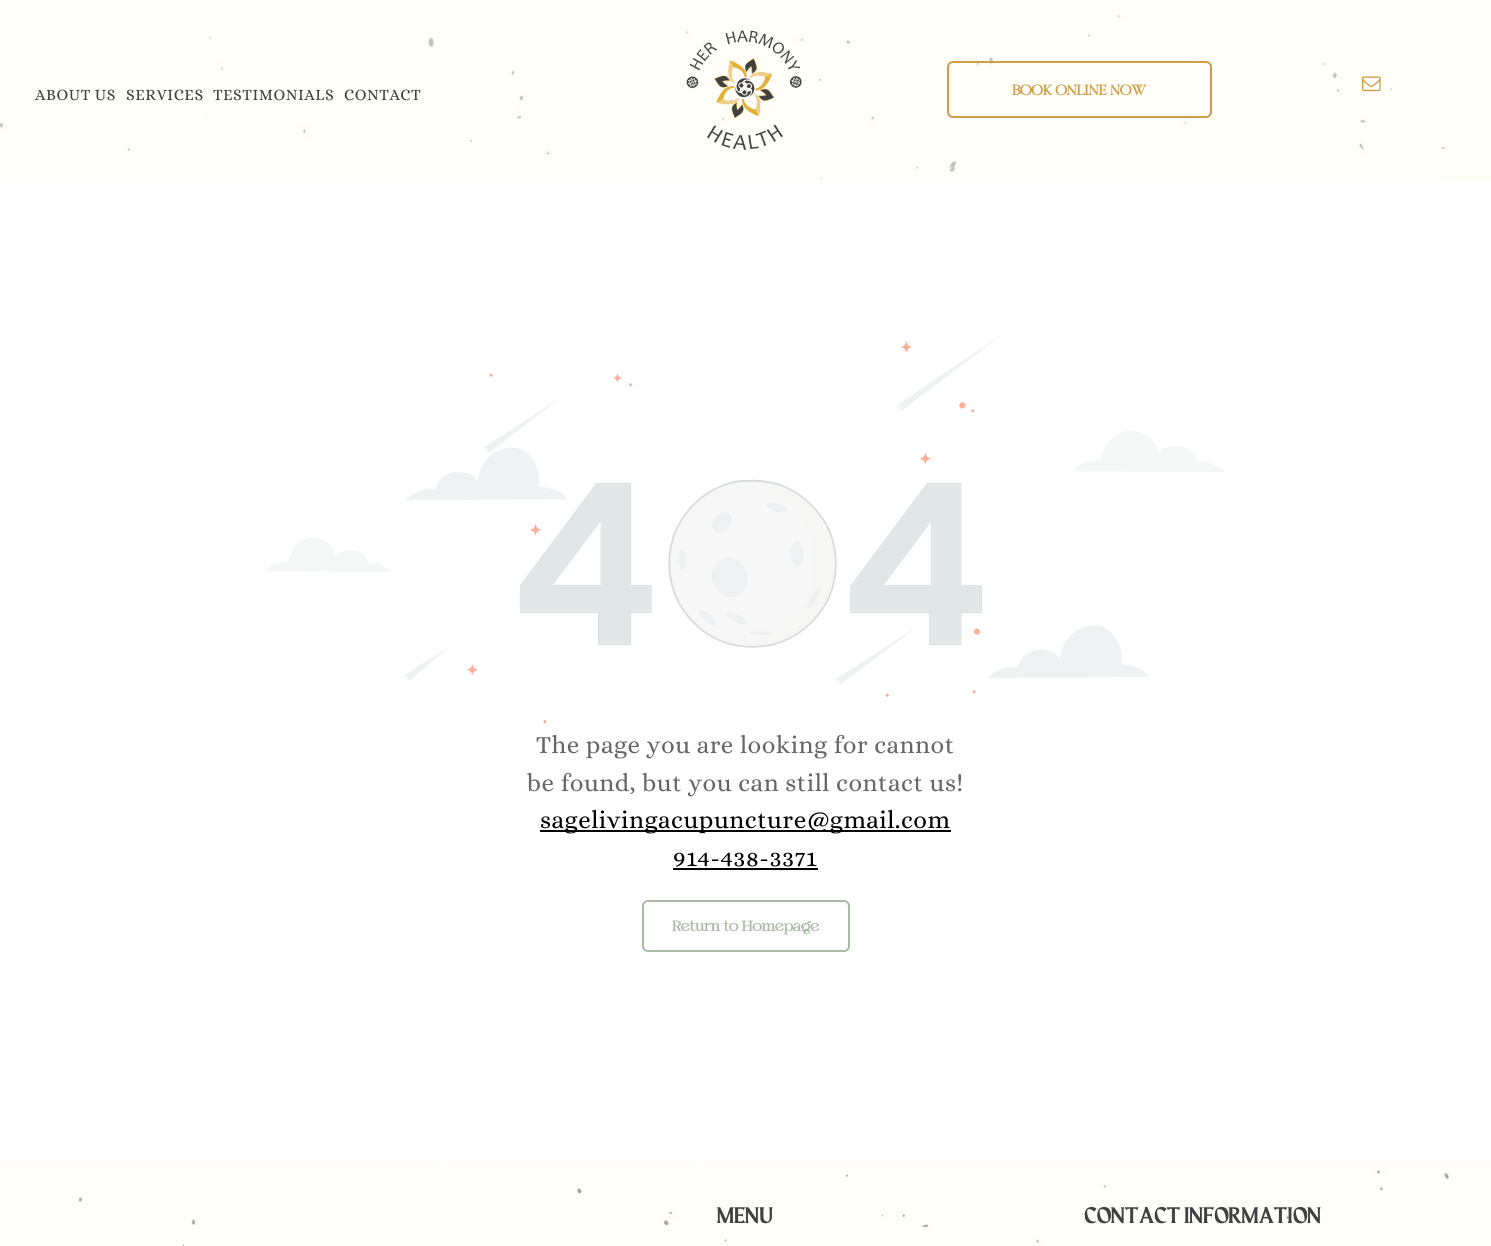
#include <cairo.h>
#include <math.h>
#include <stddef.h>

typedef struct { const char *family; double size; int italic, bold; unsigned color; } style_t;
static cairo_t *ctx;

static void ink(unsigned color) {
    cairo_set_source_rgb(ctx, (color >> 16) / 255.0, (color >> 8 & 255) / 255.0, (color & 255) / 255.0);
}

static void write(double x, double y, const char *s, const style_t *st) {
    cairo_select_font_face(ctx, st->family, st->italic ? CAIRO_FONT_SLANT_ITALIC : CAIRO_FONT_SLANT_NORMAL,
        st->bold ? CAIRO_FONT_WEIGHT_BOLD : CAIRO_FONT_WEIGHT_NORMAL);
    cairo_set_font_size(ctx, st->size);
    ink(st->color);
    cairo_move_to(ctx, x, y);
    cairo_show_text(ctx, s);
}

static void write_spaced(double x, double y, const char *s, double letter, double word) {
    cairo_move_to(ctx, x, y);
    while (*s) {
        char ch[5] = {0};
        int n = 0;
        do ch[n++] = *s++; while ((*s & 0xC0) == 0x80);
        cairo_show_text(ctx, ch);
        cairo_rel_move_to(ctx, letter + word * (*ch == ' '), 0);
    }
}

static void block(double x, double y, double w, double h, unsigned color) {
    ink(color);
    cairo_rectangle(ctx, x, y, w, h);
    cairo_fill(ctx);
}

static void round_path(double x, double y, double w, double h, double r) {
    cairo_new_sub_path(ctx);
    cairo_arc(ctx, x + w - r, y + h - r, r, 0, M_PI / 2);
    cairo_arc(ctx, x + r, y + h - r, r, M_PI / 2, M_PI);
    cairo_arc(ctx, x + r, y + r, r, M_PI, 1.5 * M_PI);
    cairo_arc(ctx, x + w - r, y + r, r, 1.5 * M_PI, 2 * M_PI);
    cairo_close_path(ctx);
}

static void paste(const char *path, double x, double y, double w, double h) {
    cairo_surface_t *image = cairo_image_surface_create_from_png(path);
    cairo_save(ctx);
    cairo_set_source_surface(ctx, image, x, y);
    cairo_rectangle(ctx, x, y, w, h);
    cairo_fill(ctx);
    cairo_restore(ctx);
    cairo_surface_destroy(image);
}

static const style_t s1 = {"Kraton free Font", 15, 0, 1, 0xcd9d49};
static const style_t s2 = {"Kraton free Font", 15, 0, 1, 0xa9bba5};
static const style_t s3 = {"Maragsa", 22, 0, 0, 0x414142};

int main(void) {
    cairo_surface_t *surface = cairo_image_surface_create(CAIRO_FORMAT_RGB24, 1491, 1246);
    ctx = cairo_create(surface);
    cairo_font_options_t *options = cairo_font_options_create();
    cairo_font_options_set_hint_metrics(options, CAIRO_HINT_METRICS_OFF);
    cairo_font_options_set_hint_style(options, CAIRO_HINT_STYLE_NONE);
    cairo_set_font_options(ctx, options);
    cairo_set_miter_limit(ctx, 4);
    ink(0xfffdf6);
    cairo_paint(ctx);
    paste("pic1.png", 0, 14, 1447, 165);
    cairo_select_font_face(ctx, "Alice", CAIRO_FONT_SLANT_NORMAL, CAIRO_FONT_WEIGHT_NORMAL);
    cairo_set_font_size(ctx, 16);
    ink(0x414142);
    write_spaced(35, 100, "ABOUT US", 0.5, 0);
    write_spaced(126, 100, "SERVICES", 0.5, 0);
    write_spaced(213, 100, "TESTIMONIALS", 0.5, 0);
    write_spaced(344, 100, "CONTACT", 0.5, 0);
    paste("pic2.png", 686, 30, 116, 120);
    round_path(948, 62, 263, 55, 5);
    ink(0xcd9d49);
    cairo_stroke(ctx);
    write(1012, 95, "BOOK ONLINE NOW", &s1);
    paste("pic3.png", 1362, 76, 19, 16);
    block(0, 181, 1491, 981, 0xffffff);
    paste("pic4.png", 266, 333, 959, 391);
    cairo_select_font_face(ctx, "Alice", CAIRO_FONT_SLANT_NORMAL, CAIRO_FONT_WEIGHT_NORMAL);
    cairo_set_font_size(ctx, 25);
    ink(0x666666);
    write_spaced(536, 753, "The page you are looking for cannot", 0.5, 0);
    write_spaced(527, 791, "be found, but you can still contact us!", 0.5, 0);
    block(540, 830, 411, 2, 0x000000);
    write_spaced(540, 828, "sagelivingacupuncture@gmail.com", 0.5, 0);
    write_spaced(673, 866, "914-438-3371", 0.5, 0);
    block(673, 868, 145, 2, 0x000000);
    round_path(643, 901, 206, 50, 5);
    ink(0xa9bba5);
    cairo_stroke(ctx);
    write(672, 931, "Return to Homepage", &s2);
    paste("pic5.png", 0, 1162, 1491, 84);
    write(717, 1223, "MENU", &s3);
    write(1084, 1223, "CONTACT INFORMATION", &s3);
    cairo_surface_write_to_png(surface, "screenshot.png");
    cairo_font_options_destroy(options);
    cairo_destroy(ctx);
    cairo_surface_destroy(surface);
    return 0;
}
